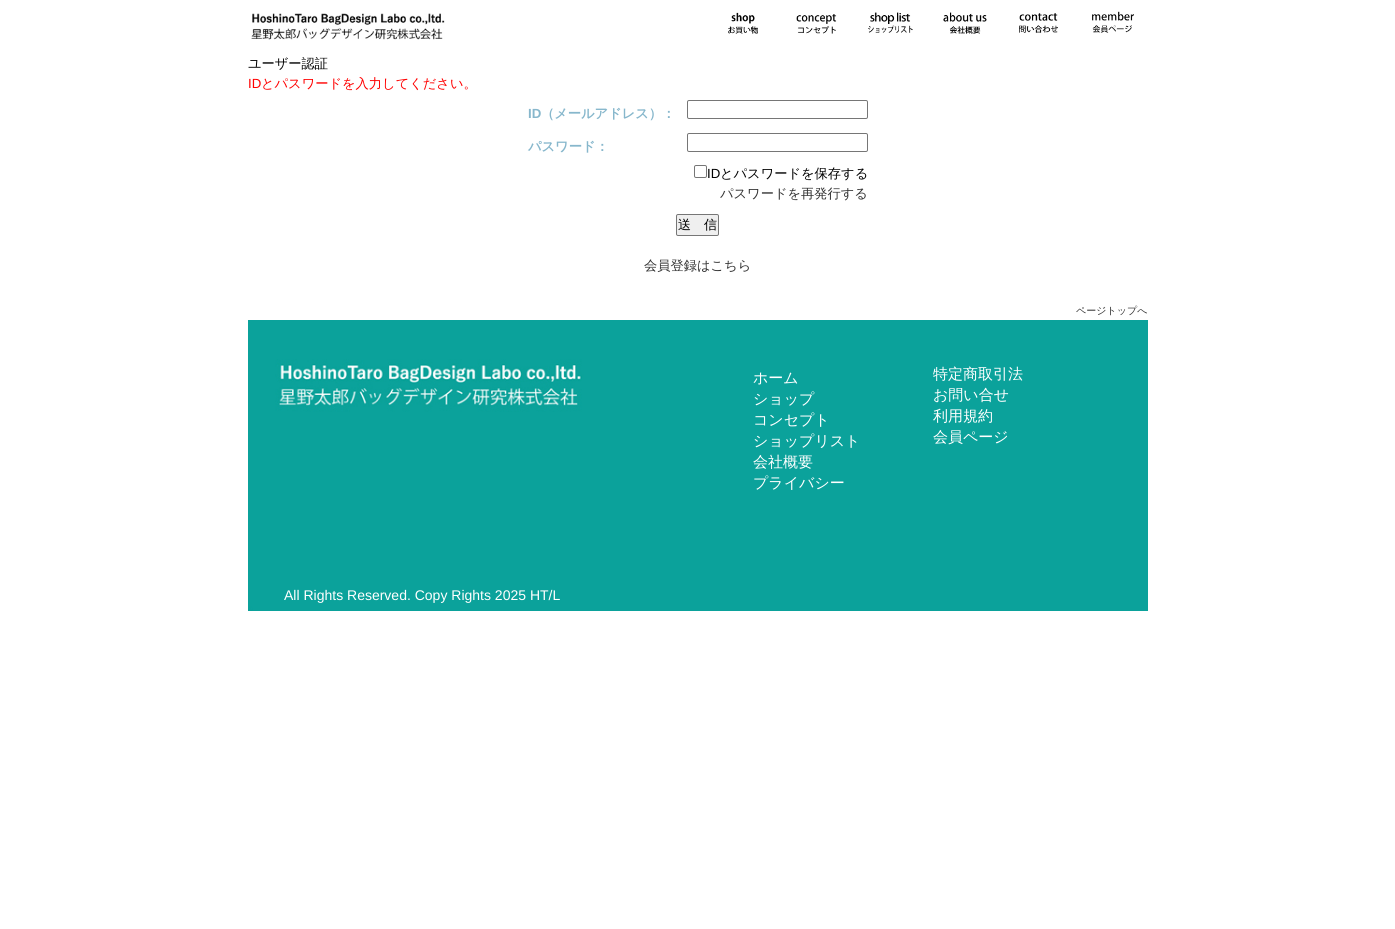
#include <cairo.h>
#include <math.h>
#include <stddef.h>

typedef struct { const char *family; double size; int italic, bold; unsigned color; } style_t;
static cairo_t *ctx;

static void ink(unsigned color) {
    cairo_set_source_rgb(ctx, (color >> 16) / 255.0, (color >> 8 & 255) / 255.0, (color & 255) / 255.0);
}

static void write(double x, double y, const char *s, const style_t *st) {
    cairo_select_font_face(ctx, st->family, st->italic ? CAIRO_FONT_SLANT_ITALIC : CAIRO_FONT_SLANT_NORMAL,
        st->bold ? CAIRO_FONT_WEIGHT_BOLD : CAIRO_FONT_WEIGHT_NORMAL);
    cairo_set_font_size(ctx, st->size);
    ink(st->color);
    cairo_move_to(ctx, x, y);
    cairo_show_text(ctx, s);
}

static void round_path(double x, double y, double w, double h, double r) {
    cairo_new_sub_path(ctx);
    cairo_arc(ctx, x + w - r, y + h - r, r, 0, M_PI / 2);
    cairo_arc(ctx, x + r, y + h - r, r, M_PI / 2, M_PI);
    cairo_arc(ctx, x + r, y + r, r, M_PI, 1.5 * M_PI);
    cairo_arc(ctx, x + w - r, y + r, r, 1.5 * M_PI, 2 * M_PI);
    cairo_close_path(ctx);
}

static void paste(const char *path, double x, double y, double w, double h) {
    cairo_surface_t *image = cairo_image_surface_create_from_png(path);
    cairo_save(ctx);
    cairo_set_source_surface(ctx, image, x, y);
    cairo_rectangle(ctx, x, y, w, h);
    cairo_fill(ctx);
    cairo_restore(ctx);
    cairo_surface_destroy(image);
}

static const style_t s1 = {"WenQuanYi Zen Hei Medium", 13.25, 0, 0, 0x000000};
static const style_t s2 = {"Liberation Sans", 13.25, 0, 0, 0xff0000};
static const style_t s3 = {"WenQuanYi Zen Hei Medium", 13.25, 0, 0, 0xff0000};
static const style_t s4 = {"Liberation Sans", 13.25, 0, 1, 0x87b7cc};
static const style_t s5 = {"WenQuanYi Zen Hei", 13.25, 0, 1, 0x87b7cc};
static const style_t s6 = {"Liberation Sans", 13.25, 0, 0, 0x000000};
static const style_t s7 = {"WenQuanYi Zen Hei Medium", 13.25, 0, 0, 0x333333};
static const style_t s8 = {"WenQuanYi Zen Hei Medium", 13, 0, 0, 0x000000};
static const style_t s9 = {"WenQuanYi Zen Hei Medium", 10, 0, 0, 0x333333};
static const style_t s10 = {"WenQuanYi Zen Hei Medium", 15, 0, 0, 0xffffff};
static const style_t s11 = {"Liberation Sans", 14, 0, 0, 0xffffff};

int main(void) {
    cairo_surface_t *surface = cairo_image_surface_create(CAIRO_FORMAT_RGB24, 1395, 929);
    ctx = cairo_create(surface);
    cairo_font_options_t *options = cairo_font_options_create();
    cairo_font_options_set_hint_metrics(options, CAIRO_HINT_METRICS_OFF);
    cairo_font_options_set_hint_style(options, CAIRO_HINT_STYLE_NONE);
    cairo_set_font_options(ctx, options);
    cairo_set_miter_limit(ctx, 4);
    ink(0xffffff);
    cairo_paint(ctx);
    paste("pic1.png", 251, 13, 194, 27);
    paste("pic2.png", 728, 12, 30, 22);
    paste("pic3.png", 796, 14, 41, 20);
    paste("pic4.png", 868, 12, 45, 21);
    paste("pic5.png", 943, 12, 44, 22);
    paste("pic6.png", 1019, 13, 39, 20);
    paste("pic7.png", 1092, 11, 42, 22);
    write(248, 68, "ユーザー認証", &s1);
    write(248, 88, "ID", &s2);
    write(261, 88, "とパスワードを入力してください。", &s3);
    write(528, 118, "ID", &s4);
    write(541, 118, "（メールアドレス）：", &s5);
    round_path(687.5, 100.5, 180, 18, 1.5);
    ink(0x767676);
    cairo_set_line_width(ctx, 1);
    cairo_stroke(ctx);
    write(528, 151, "パスワード：", &s5);
    round_path(687.5, 133.5, 180, 18, 1.5);
    ink(0x767676);
    cairo_stroke(ctx);
    round_path(694.5, 165.5, 12, 12, 1.5);
    cairo_stroke(ctx);
    write(707, 178, "ID", &s6);
    write(720, 178, "とパスワードを保存する", &s1);
    write(720, 198, "パスワードを再発行する", &s7);
    ink(0xefefef);
    round_path(676.5, 214.5, 42, 21, 1.5);
    cairo_fill_preserve(ctx);
    ink(0x767676);
    cairo_stroke(ctx);
    write(678, 229, "送　信", &s8);
    write(644, 270, "会員登録はこちら", &s7);
    write(1076, 314, "ページトップへ", &s9);
    paste("pic8.png", 248, 320, 900, 291);
    write(753, 383, "ホーム", &s10);
    write(933, 379, "特定商取引法", &s10);
    write(753, 404, "ショップ", &s10);
    write(933, 400, "お問い合せ", &s10);
    write(753, 425, "コンセプト", &s10);
    write(933, 421, "利用規約", &s10);
    write(753, 446, "ショップリスト", &s10);
    write(933, 442, "会員ページ", &s10);
    write(753, 467, "会社概要", &s10);
    write(753, 488, "プライバシー", &s10);
    write(284, 600, "All Rights Reserved. Copy Rights 2025 HT/L", &s11);
    cairo_surface_write_to_png(surface, "screenshot.png");
    cairo_font_options_destroy(options);
    cairo_destroy(ctx);
    cairo_surface_destroy(surface);
    return 0;
}
